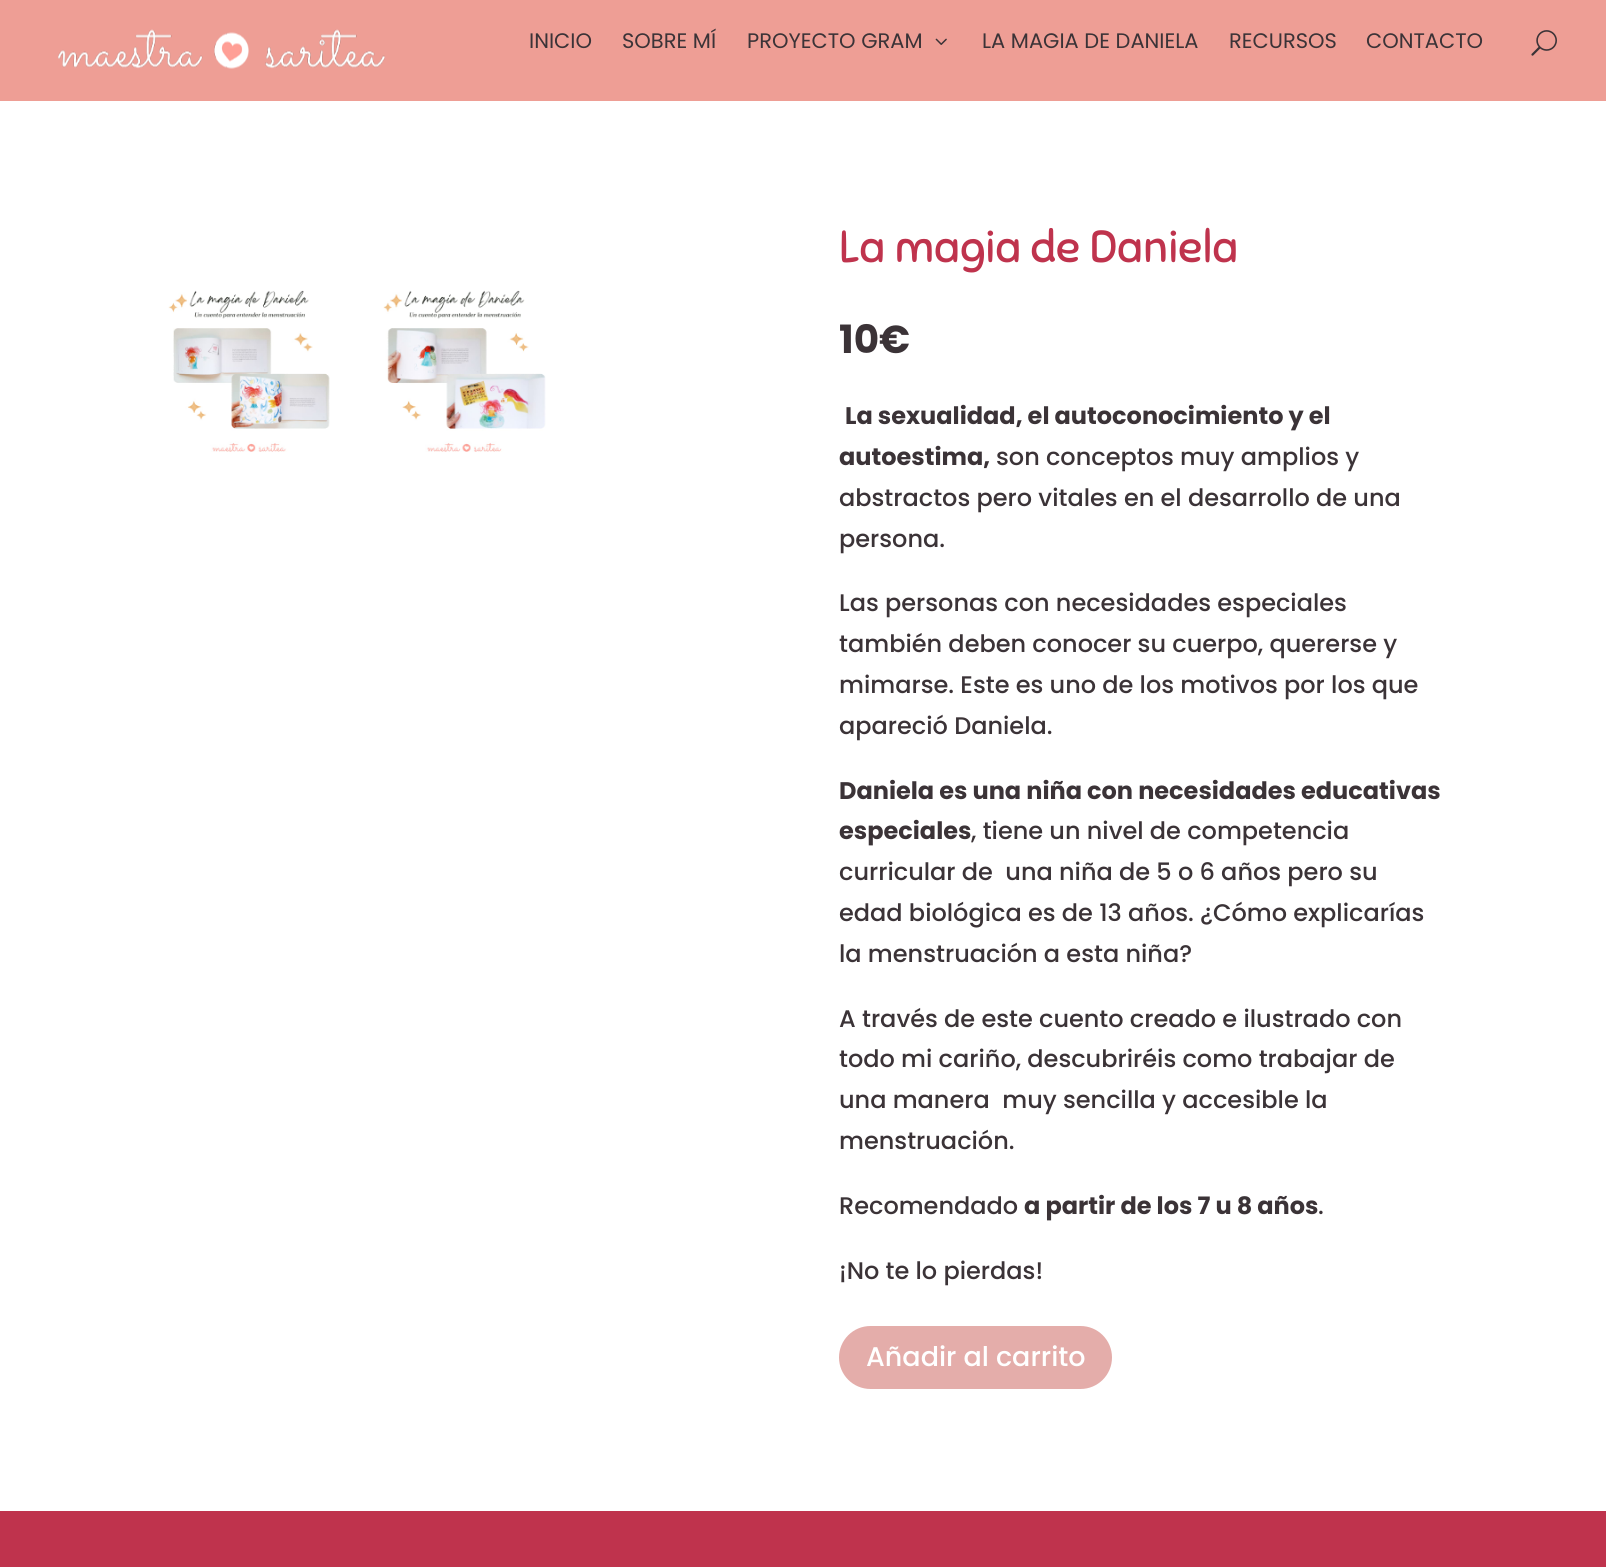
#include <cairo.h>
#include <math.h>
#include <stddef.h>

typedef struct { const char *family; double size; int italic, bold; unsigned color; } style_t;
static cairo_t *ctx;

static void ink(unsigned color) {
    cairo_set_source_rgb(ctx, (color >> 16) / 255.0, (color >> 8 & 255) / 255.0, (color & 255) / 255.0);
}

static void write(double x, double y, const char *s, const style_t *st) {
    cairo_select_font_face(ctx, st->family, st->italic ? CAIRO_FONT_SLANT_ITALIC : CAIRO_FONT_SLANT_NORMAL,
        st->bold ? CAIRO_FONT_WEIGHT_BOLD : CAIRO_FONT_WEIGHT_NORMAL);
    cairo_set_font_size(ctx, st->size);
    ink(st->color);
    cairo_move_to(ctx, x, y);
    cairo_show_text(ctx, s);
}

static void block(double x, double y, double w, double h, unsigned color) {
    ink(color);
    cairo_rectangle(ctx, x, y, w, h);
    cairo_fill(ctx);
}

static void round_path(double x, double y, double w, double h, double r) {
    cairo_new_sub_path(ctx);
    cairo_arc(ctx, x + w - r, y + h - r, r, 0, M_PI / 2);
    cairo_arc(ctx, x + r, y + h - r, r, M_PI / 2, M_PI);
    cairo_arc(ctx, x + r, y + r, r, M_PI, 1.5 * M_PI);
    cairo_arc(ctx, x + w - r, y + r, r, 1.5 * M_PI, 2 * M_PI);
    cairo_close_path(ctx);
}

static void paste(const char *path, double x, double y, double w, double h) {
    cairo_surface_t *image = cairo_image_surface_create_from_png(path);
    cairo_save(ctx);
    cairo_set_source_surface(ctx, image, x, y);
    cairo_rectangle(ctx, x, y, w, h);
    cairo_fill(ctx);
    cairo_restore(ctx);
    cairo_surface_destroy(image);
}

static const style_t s1 = {"Poppins", 21, 0, 0, 0x3b3337};
static const style_t s2 = {"Sniglet", 45, 0, 0, 0xbf334d};
static const style_t s3 = {"Poppins", 39, 0, 1, 0x3b3337};
static const style_t s4 = {"Poppins", 24, 0, 1, 0x3b3337};
static const style_t s5 = {"Poppins Medium", 24, 0, 0, 0x3b3337};
static const style_t s6 = {"Poppins Medium", 27, 0, 0, 0xffffff};

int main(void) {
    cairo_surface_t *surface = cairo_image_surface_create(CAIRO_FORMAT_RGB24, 1606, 1567);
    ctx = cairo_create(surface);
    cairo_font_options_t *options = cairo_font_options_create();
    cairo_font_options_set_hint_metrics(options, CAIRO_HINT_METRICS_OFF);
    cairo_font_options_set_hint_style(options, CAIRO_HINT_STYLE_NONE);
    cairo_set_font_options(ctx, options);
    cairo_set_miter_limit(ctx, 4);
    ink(0xffffff);
    cairo_paint(ctx);
    block(0, 0, 1606, 101, 0xee9e95);
    paste("pic1.png", 58, 29, 327, 40);
    write(529, 48, "INICIO", &s1);
    write(622, 48, "SOBRE MÍ", &s1);
    write(747, 48, "PROYECTO GRAM", &s1);
    paste("pic2.png", 935, 38, 12, 7);
    write(982, 48, "LA MAGIA DE DANIELA", &s1);
    write(1229, 48, "RECURSOS", &s1);
    write(1366, 48, "CONTACTO", &s1);
    paste("pic3.png", 1531, 30, 26, 26);
    paste("pic4.png", 168, 290, 162, 162);
    paste("pic5.png", 383, 290, 163, 162);
    write(839, 262, "La magia de Daniela", &s2);
    write(839, 353, "10€", &s3);
    write(845, 424, "La sexualidad, el autoconocimiento y el", &s4);
    write(839, 465, "autoestima,", &s4);
    write(996, 465, "son conceptos muy amplios y", &s5);
    write(839, 506, "abstractos pero vitales en el desarrollo de una", &s5);
    write(839, 547, "persona.", &s5);
    write(839, 611, "Las personas con necesidades especiales", &s5);
    write(839, 652, "también deben conocer su cuerpo, quererse y", &s5);
    write(839, 693, "mimarse. Este es uno de los motivos por los que", &s5);
    write(839, 734, "apareció Daniela.", &s5);
    write(839, 799, "Daniela es una niña con necesidades educativas", &s4);
    write(839, 839, "especiales", &s4);
    write(971, 839, ", tiene un nivel de competencia", &s5);
    write(839, 880, "curricular de  una niña de 5 o 6 años pero su", &s5);
    write(839, 921, "edad biológica es de 13 años. ¿Cómo explicarías", &s5);
    write(839, 962, "la menstruación a esta niña?", &s5);
    write(839, 1027, "A través de este cuento creado e ilustrado con", &s5);
    write(839, 1067, "todo mi cariño, descubriréis como trabajar de", &s5);
    write(839, 1108, "una manera  muy sencilla y accesible la", &s5);
    write(839, 1149, "menstruación.", &s5);
    write(839, 1214, "Recomendado", &s5);
    write(1024, 1214, "a partir de los 7 u 8 años", &s4);
    write(1318, 1214, ".", &s5);
    write(839, 1279, "¡No te lo pierdas!", &s5);
    ink(0xe4adaa);
    round_path(839, 1326, 273, 63, 31.5);
    cairo_fill(ctx);
    write(866, 1366, "Añadir al carrito", &s6);
    block(0, 1511, 1606, 56, 0xbf334d);
    cairo_surface_write_to_png(surface, "screenshot.png");
    cairo_font_options_destroy(options);
    cairo_destroy(ctx);
    cairo_surface_destroy(surface);
    return 0;
}
